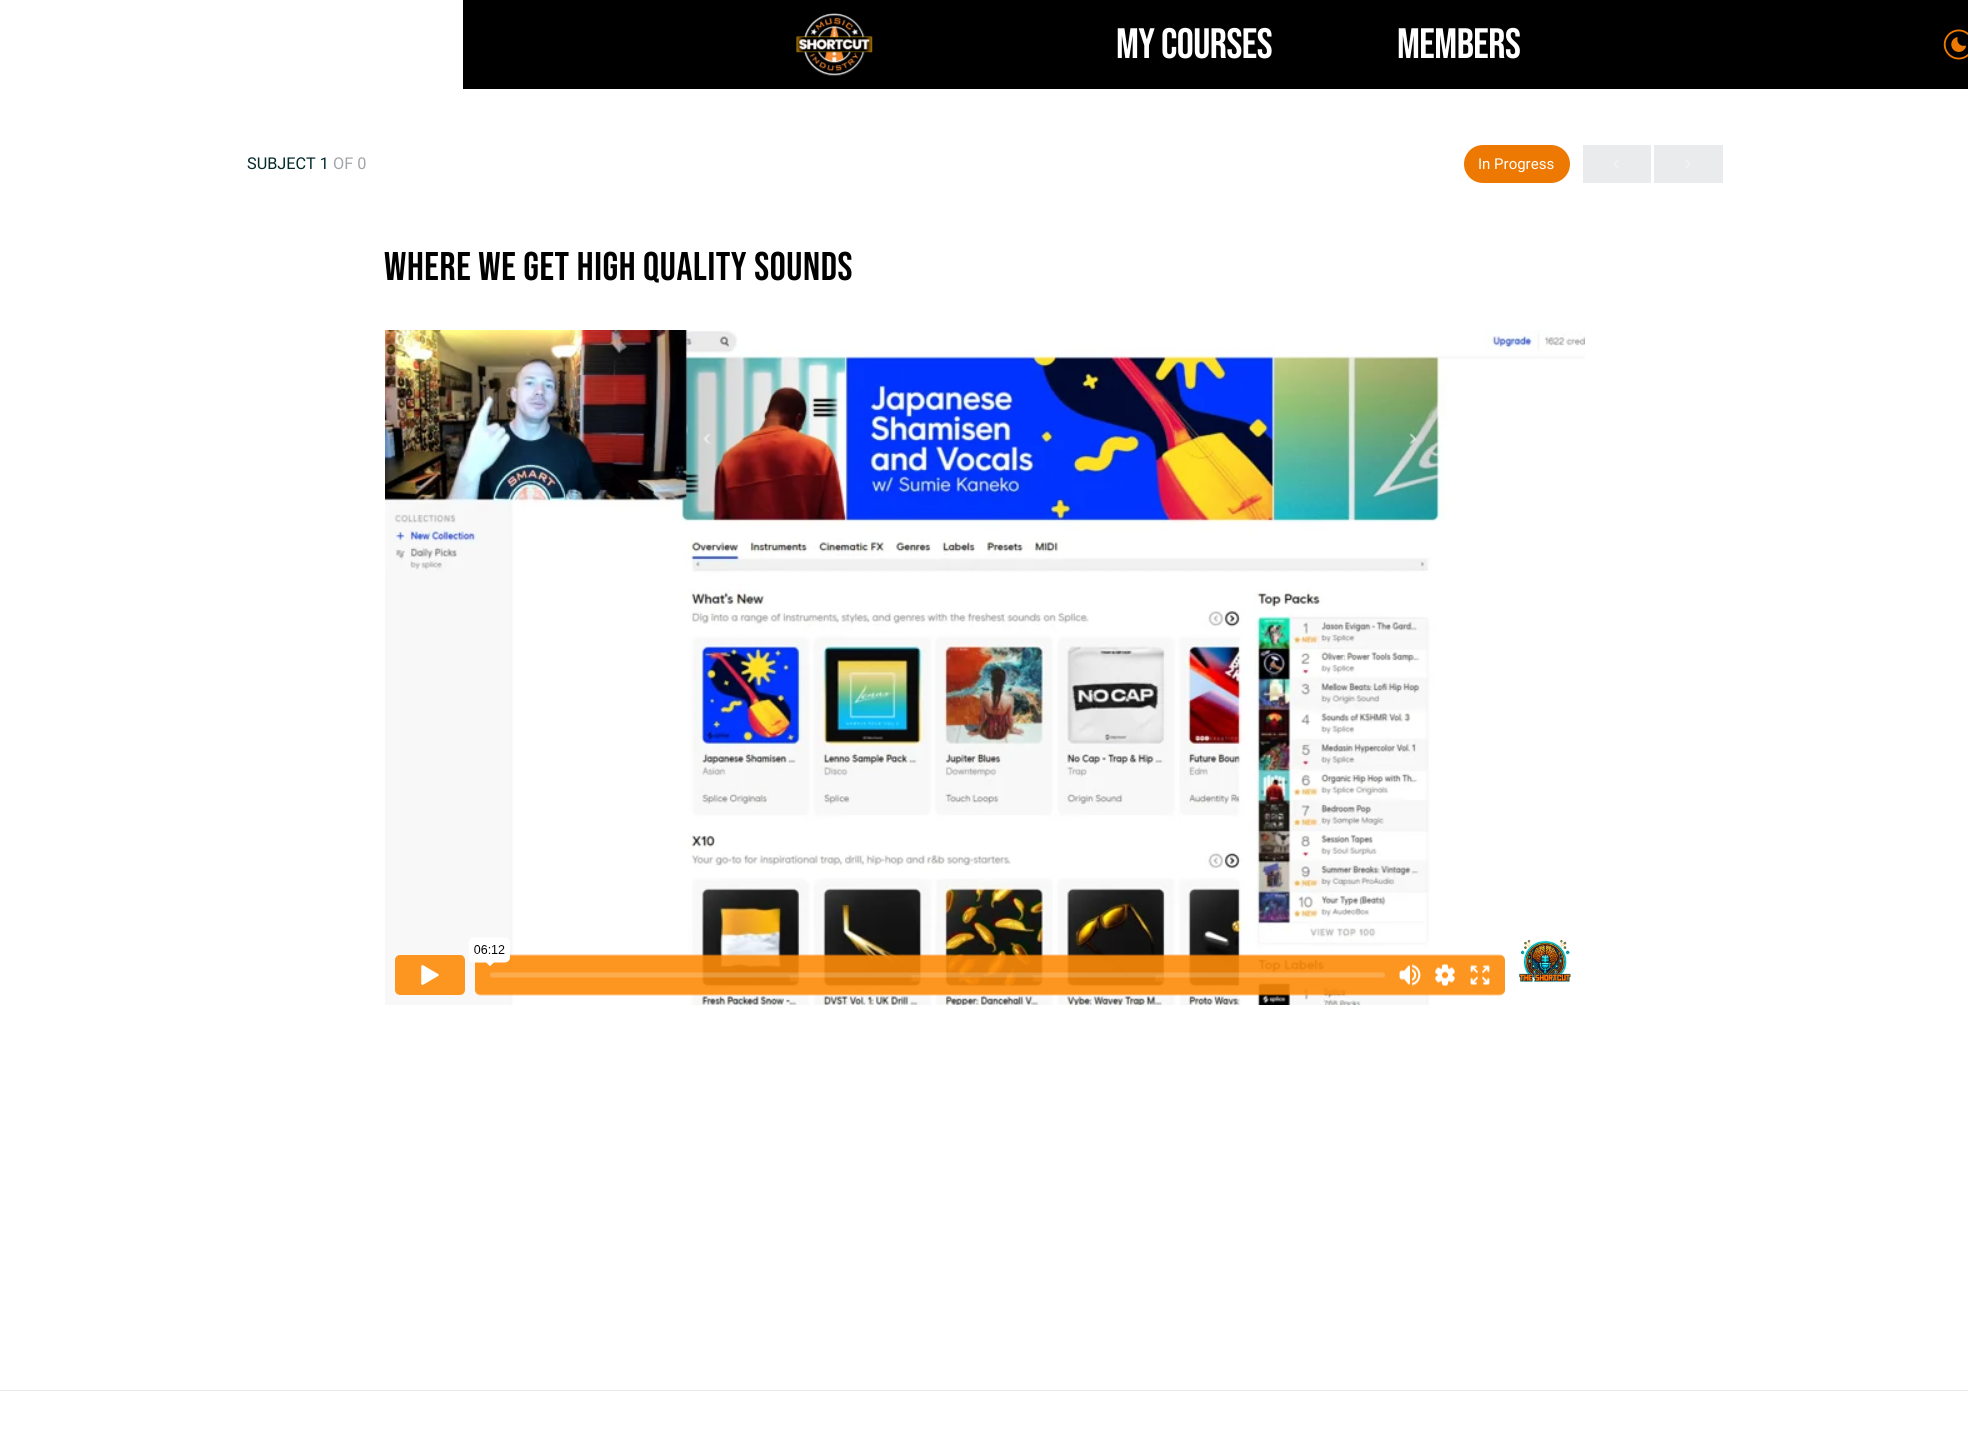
#include <cairo.h>
#include <math.h>
#include <stddef.h>

typedef struct { const char *family; double size; int italic, bold; unsigned color; } style_t;
static cairo_t *ctx;

static void ink(unsigned color) {
    cairo_set_source_rgb(ctx, (color >> 16) / 255.0, (color >> 8 & 255) / 255.0, (color & 255) / 255.0);
}

static void write(double x, double y, const char *s, const style_t *st) {
    cairo_select_font_face(ctx, st->family, st->italic ? CAIRO_FONT_SLANT_ITALIC : CAIRO_FONT_SLANT_NORMAL,
        st->bold ? CAIRO_FONT_WEIGHT_BOLD : CAIRO_FONT_WEIGHT_NORMAL);
    cairo_set_font_size(ctx, st->size);
    ink(st->color);
    cairo_move_to(ctx, x, y);
    cairo_show_text(ctx, s);
}

static void write_spaced(double x, double y, const char *s, double letter, double word) {
    cairo_move_to(ctx, x, y);
    while (*s) {
        char ch[5] = {0};
        int n = 0;
        do ch[n++] = *s++; while ((*s & 0xC0) == 0x80);
        cairo_show_text(ctx, ch);
        cairo_rel_move_to(ctx, letter + word * (*ch == ' '), 0);
    }
}

static void block(double x, double y, double w, double h, unsigned color) {
    ink(color);
    cairo_rectangle(ctx, x, y, w, h);
    cairo_fill(ctx);
}

static void round_path(double x, double y, double w, double h, double r) {
    cairo_new_sub_path(ctx);
    cairo_arc(ctx, x + w - r, y + h - r, r, 0, M_PI / 2);
    cairo_arc(ctx, x + r, y + h - r, r, M_PI / 2, M_PI);
    cairo_arc(ctx, x + r, y + r, r, M_PI, 1.5 * M_PI);
    cairo_arc(ctx, x + w - r, y + r, r, 1.5 * M_PI, 2 * M_PI);
    cairo_close_path(ctx);
}

static void paste(const char *path, double x, double y, double w, double h) {
    cairo_surface_t *image = cairo_image_surface_create_from_png(path);
    cairo_save(ctx);
    cairo_set_source_surface(ctx, image, x, y);
    cairo_rectangle(ctx, x, y, w, h);
    cairo_fill(ctx);
    cairo_restore(ctx);
    cairo_surface_destroy(image);
}

static const style_t s1 = {"Roboto", 16.25, 0, 0, 0x042a2b};
static const style_t s2 = {"Roboto", 16.25, 0, 0, 0xa3a5a9};
static const style_t s3 = {"Roboto", 15, 0, 0, 0xffffff};

int main(void) {
    cairo_surface_t *surface = cairo_image_surface_create(CAIRO_FORMAT_RGB24, 1968, 1434);
    ctx = cairo_create(surface);
    cairo_font_options_t *options = cairo_font_options_create();
    cairo_font_options_set_hint_metrics(options, CAIRO_HINT_METRICS_OFF);
    cairo_font_options_set_hint_style(options, CAIRO_HINT_STYLE_NONE);
    cairo_set_font_options(ctx, options);
    cairo_set_miter_limit(ctx, 4);
    ink(0xffffff);
    cairo_paint(ctx);
    block(463, 0, 1505, 89, 0x000000);
    paste("pic1.png", 796, 13, 77, 63);
    cairo_select_font_face(ctx, "Bebas Neue", CAIRO_FONT_SLANT_NORMAL, CAIRO_FONT_WEIGHT_NORMAL);
    cairo_set_font_size(ctx, 42.5);
    ink(0xffffff);
    write_spaced(1116, 58, "MY COURSES", -0.5, 0);
    write_spaced(1397, 58, "MEMBERS", -0.5, 0);
    paste("pic2.png", 1943, 29, 25, 31);
    block(0, 1390, 1968, 1, 0xe7e9ec);
    write(247, 169, "SUBJECT 1", &s1);
    write(333, 169, "OF 0", &s2);
    ink(0xed7902);
    round_path(1464, 145, 106, 38, 19);
    cairo_fill(ctx);
    write(1478, 169, "In Progress", &s3);
    block(1583, 145, 68, 38, 0xe9ebed);
    paste("pic3.png", 1614, 159, 5, 10);
    block(1654, 145, 69, 38, 0xe9ebed);
    paste("pic4.png", 1685, 159, 5, 10);
    cairo_select_font_face(ctx, "Bebas Neue", CAIRO_FONT_SLANT_NORMAL, CAIRO_FONT_WEIGHT_NORMAL);
    cairo_set_font_size(ctx, 40);
    ink(0x000000);
    write_spaced(384, 280, "WHERE WE GET HIGH QUALITY SOUNDS", 0.6, 0);
    paste("pic5.png", 385, 330, 1200, 675);
    cairo_surface_write_to_png(surface, "screenshot.png");
    cairo_font_options_destroy(options);
    cairo_destroy(ctx);
    cairo_surface_destroy(surface);
    return 0;
}
